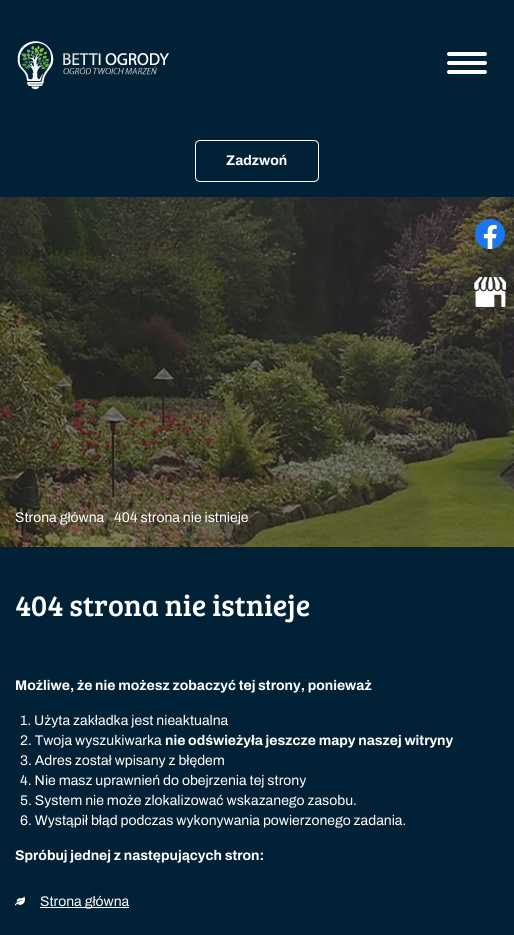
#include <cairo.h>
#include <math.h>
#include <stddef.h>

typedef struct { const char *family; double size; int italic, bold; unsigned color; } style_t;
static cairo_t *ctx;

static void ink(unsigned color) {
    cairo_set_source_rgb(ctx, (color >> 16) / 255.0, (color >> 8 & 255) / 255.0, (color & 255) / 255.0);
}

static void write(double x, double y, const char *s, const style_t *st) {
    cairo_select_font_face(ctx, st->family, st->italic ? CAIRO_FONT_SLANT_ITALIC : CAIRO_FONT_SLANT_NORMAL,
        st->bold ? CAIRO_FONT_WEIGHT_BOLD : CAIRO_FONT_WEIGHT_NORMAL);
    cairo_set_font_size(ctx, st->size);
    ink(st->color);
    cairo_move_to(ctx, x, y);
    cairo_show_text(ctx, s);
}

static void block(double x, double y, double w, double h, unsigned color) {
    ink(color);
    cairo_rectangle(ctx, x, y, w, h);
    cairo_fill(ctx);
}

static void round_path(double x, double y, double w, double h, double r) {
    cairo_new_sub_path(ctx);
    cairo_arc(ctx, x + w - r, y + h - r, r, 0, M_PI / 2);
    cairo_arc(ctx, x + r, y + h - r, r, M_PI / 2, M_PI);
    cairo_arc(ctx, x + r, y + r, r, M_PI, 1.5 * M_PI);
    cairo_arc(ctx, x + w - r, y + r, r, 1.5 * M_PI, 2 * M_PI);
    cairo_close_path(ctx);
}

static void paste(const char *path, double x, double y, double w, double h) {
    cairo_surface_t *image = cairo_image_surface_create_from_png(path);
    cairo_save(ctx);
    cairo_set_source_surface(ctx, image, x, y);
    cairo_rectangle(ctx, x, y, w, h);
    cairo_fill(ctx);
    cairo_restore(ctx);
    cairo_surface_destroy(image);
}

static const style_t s1 = {"Archivo", 14, 0, 1, 0xffffff};
static const style_t s2 = {"Archivo", 14, 0, 0, 0xffffff};
static const style_t s3 = {"Bree Serif", 30, 0, 0, 0xffffff};

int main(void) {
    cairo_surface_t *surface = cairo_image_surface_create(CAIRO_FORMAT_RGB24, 514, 935);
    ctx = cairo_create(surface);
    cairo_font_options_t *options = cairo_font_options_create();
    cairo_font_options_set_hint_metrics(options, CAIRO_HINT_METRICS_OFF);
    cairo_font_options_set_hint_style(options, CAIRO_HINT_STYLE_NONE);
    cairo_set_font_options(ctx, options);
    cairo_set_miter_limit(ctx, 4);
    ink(0x002136);
    cairo_paint(ctx);
    paste("pic1.png", 17, 41, 152, 49);
    ink(0xffffff);
    round_path(447, 52, 40, 4, 2);
    cairo_fill(ctx);
    round_path(447, 61, 40, 4, 2);
    cairo_fill(ctx);
    round_path(447, 70, 40, 4, 2);
    cairo_fill(ctx);
    round_path(195.5, 140.5, 123, 41, 4.5);
    cairo_set_line_width(ctx, 1);
    cairo_stroke(ctx);
    write(226, 165, "Zadzwoń", &s1);
    paste("pic4.png", 0, 197, 514, 350);
    paste("pic2.png", 475, 219, 30, 30);
    paste("pic3.png", 474, 277, 32, 30);
    write(15, 522, "Strona główna", &s2);
    write(114, 522, "404 strona nie istnieje", &s2);
    write(15, 616, "404 strona nie istnieje", &s3);
    write(15, 690, "Możliwe, że nie możesz zobaczyć tej strony, ponieważ", &s1);
    write(20, 725, "1. Użyta zakładka jest nieaktualna", &s2);
    write(20, 745, "2. Twoja wyszukiwarka", &s2);
    write(165, 745, "nie odświeżyła jeszcze mapy naszej witryny", &s1);
    write(20, 765, "3. Adres został wpisany z błędem", &s2);
    write(20, 785, "4. Nie masz uprawnień do obejrzenia tej strony", &s2);
    write(20, 805, "5. System nie może zlokalizować wskazanego zasobu.", &s2);
    write(20, 825, "6. Wystąpił błąd podczas wykonywania powierzonego zadania.", &s2);
    write(15, 860, "Spróbuj jednej z następujących stron:", &s1);
    paste("pic5.png", 15, 896, 10, 10);
    block(40, 907, 89, 1, 0xffffff);
    write(40, 906, "Strona główna", &s2);
    cairo_surface_write_to_png(surface, "screenshot.png");
    cairo_font_options_destroy(options);
    cairo_destroy(ctx);
    cairo_surface_destroy(surface);
    return 0;
}
